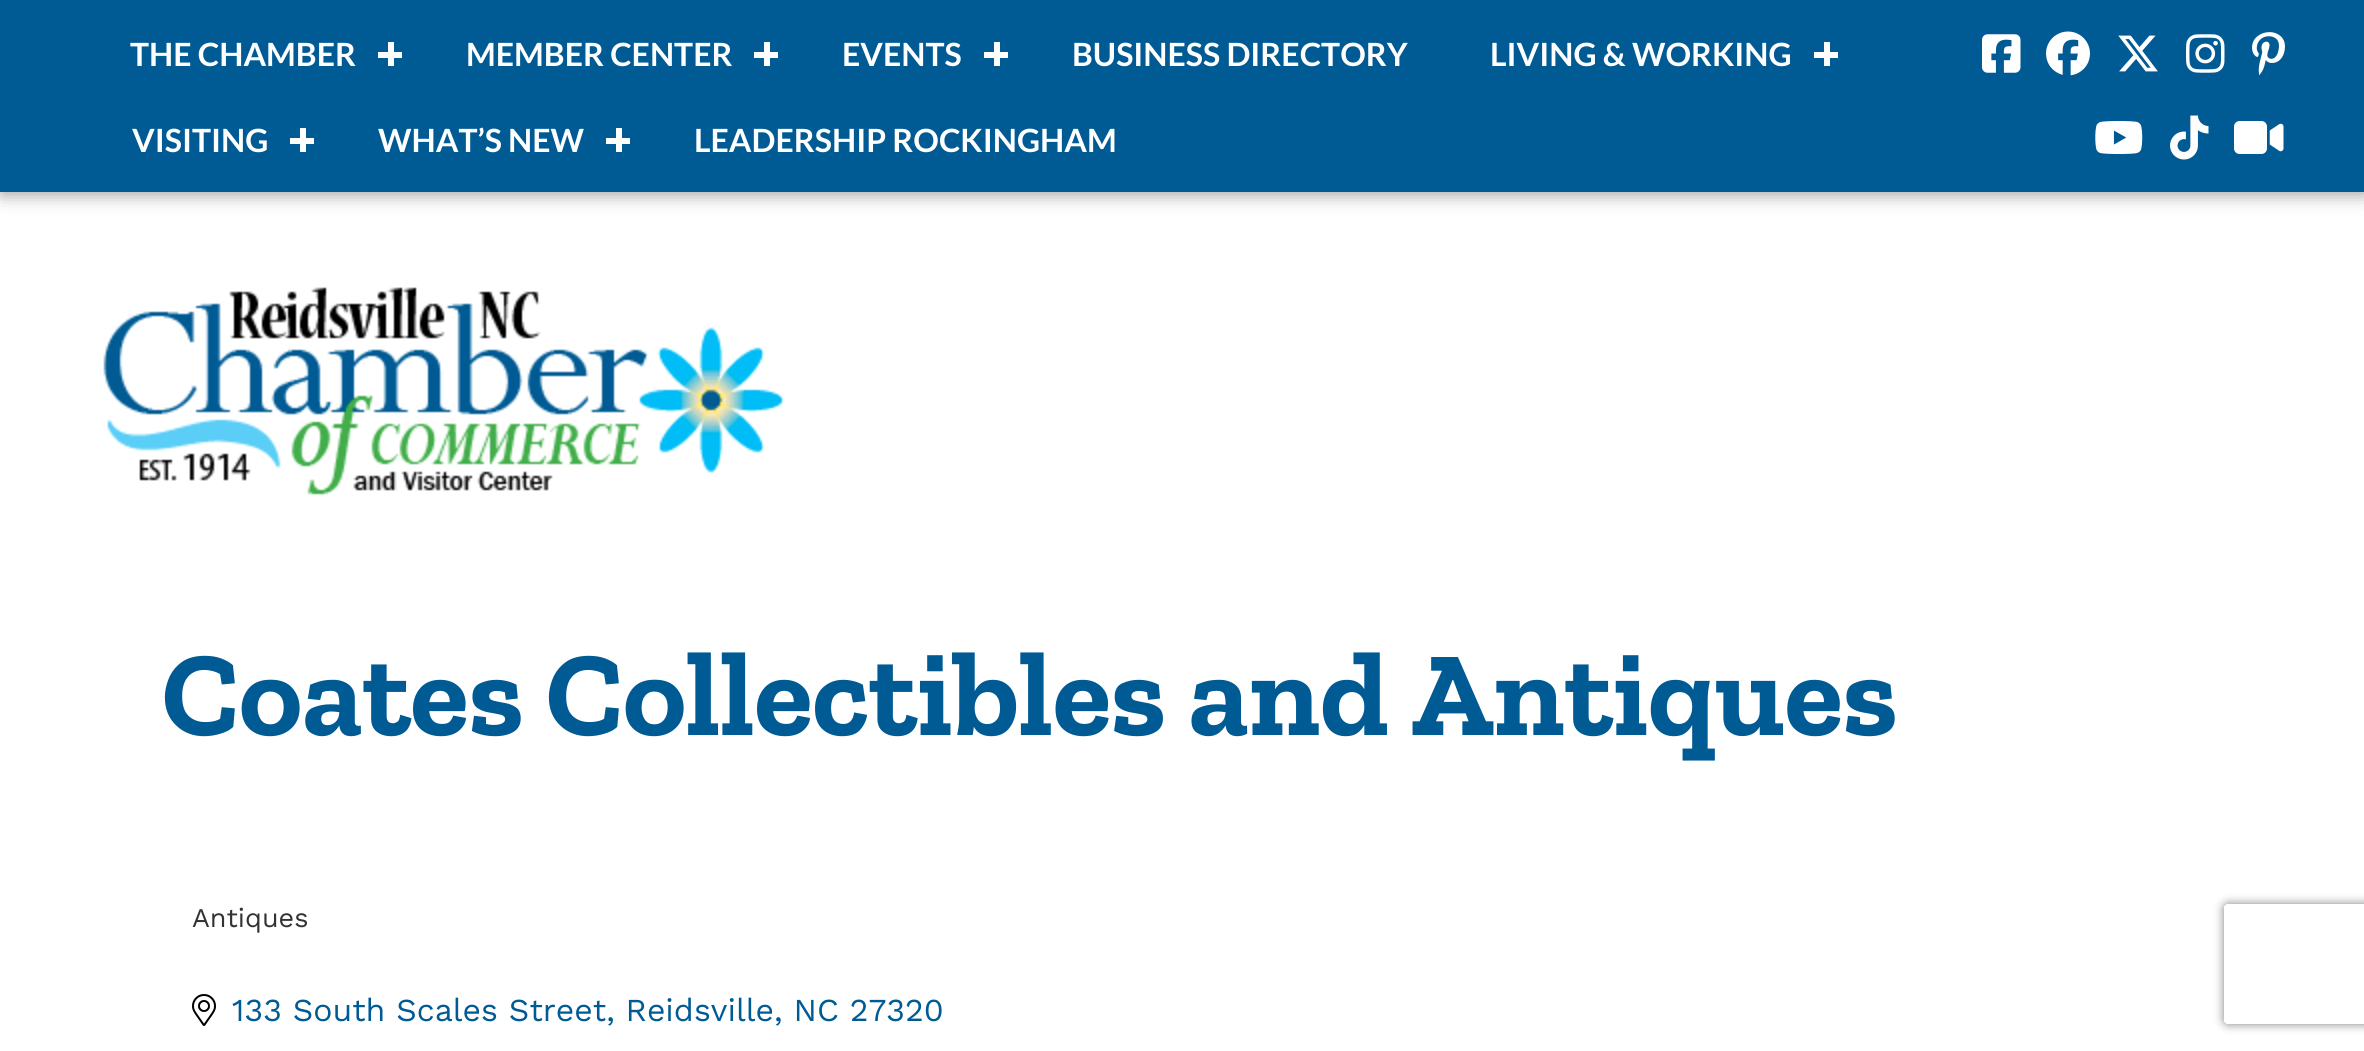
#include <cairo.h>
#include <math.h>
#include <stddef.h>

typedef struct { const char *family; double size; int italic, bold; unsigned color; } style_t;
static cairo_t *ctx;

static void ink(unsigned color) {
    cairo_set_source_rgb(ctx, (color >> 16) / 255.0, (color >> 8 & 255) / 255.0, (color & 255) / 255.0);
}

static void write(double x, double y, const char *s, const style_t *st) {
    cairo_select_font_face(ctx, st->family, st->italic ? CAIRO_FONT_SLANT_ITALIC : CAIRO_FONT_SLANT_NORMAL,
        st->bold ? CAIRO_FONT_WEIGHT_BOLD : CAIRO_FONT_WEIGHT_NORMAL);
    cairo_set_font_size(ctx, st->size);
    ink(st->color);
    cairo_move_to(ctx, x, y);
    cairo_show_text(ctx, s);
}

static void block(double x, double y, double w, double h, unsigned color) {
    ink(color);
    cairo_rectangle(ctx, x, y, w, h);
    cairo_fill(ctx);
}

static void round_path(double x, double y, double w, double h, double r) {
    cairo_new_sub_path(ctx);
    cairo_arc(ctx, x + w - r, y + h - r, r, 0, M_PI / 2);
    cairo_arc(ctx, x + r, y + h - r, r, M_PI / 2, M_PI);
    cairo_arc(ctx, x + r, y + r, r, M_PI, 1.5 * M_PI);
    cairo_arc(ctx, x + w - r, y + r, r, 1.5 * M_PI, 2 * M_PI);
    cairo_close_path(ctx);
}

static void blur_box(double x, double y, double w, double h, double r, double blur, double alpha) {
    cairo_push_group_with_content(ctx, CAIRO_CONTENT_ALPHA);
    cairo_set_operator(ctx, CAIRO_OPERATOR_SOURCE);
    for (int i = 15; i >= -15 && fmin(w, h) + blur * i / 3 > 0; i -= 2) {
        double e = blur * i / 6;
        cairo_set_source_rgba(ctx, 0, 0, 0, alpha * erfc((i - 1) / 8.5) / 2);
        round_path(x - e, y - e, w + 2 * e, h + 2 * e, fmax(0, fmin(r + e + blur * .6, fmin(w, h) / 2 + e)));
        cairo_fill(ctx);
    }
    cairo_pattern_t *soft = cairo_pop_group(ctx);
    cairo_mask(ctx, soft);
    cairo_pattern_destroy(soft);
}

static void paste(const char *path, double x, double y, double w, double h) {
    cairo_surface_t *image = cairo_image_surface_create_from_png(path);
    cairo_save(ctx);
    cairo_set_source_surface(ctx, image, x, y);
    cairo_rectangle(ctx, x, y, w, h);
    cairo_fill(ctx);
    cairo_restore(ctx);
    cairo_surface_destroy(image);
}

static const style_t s1 = {"Lato", 32, 0, 1, 0xffffff};
static const style_t s2 = {"Zilla Slab", 120, 0, 1, 0x005a94};
static const style_t s3 = {"Work Sans", 27, 0, 0, 0x333333};
static const style_t s4 = {"Work Sans", 32, 0, 0, 0x005a94};

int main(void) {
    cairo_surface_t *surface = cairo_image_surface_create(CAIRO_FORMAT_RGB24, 2364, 1051);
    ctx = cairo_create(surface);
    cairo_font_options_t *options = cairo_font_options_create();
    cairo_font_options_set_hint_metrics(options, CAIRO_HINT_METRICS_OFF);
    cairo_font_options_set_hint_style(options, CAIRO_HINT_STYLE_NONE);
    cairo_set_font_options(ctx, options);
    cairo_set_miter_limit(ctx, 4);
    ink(0xffffff);
    cairo_paint(ctx);
    ink(0x999999);
    blur_box(2, 2, 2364, 192, 0, 9, 1);
    block(0, 0, 2364, 192, 0x005a94);
    write(130, 66, "THE CHAMBER", &s1);
    block(378, 52, 24, 6, 0xffffff);
    block(388, 42, 6, 24, 0xffffff);
    write(466, 66, "MEMBER CENTER", &s1);
    block(754, 52, 24, 6, 0xffffff);
    block(764, 42, 6, 24, 0xffffff);
    write(842, 66, "EVENTS", &s1);
    block(984, 52, 24, 6, 0xffffff);
    block(994, 42, 6, 24, 0xffffff);
    write(1072, 66, "BUSINESS DIRECTORY", &s1);
    write(1490, 66, "LIVING & WORKING", &s1);
    block(1814, 52, 24, 6, 0xffffff);
    block(1824, 42, 6, 24, 0xffffff);
    write(132, 152, "VISITING", &s1);
    block(290, 138, 24, 6, 0xffffff);
    block(300, 128, 6, 24, 0xffffff);
    write(378, 152, "WHAT’S NEW", &s1);
    block(606, 138, 24, 6, 0xffffff);
    block(616, 128, 6, 24, 0xffffff);
    write(694, 152, "LEADERSHIP ROCKINGHAM", &s1);
    paste("pic1.png", 1982, 34, 39, 39);
    paste("pic2.png", 2046, 31, 44, 45);
    paste("pic3.png", 2118, 35, 40, 37);
    paste("pic4.png", 2186, 34, 39, 39);
    paste("pic5.png", 2252, 32, 33, 43);
    paste("pic6.png", 2095, 121, 48, 33);
    paste("pic7.png", 2170, 115, 39, 45);
    paste("pic8.png", 2234, 121, 50, 33);
    paste("pic9.png", 103, 287, 680, 208);
    write(162, 735, "Coates Collectibles and Antiques", &s2);
    write(192, 927, "Antiques", &s3);
    paste("pic10.png", 192, 994, 24, 32);
    write(232, 1021, "133 South Scales Street, Reidsville, NC 27320", &s4);
    cairo_save(ctx);
    cairo_set_fill_rule(ctx, CAIRO_FILL_RULE_EVEN_ODD);
    cairo_new_path(ctx);
    cairo_move_to(ctx, 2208, 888);
    cairo_line_to(ctx, 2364, 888);
    cairo_line_to(ctx, 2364, 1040);
    cairo_line_to(ctx, 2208, 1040);
    cairo_close_path(ctx);
    cairo_move_to(ctx, 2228, 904);
    cairo_line_to(ctx, 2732, 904);
    cairo_curve_to(ctx, 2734, 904, 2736, 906, 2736, 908);
    cairo_line_to(ctx, 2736, 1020);
    cairo_curve_to(ctx, 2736, 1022, 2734, 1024, 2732, 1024);
    cairo_line_to(ctx, 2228, 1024);
    cairo_curve_to(ctx, 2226, 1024, 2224, 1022, 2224, 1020);
    cairo_line_to(ctx, 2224, 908);
    cairo_curve_to(ctx, 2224, 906, 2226, 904, 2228, 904);
    cairo_close_path(ctx);
    cairo_clip(ctx);
    ink(0x808080);
    blur_box(2224, 904, 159, 120, 4, 5, 1);
    cairo_restore(ctx);
    cairo_surface_write_to_png(surface, "screenshot.png");
    cairo_font_options_destroy(options);
    cairo_destroy(ctx);
    cairo_surface_destroy(surface);
    return 0;
}
